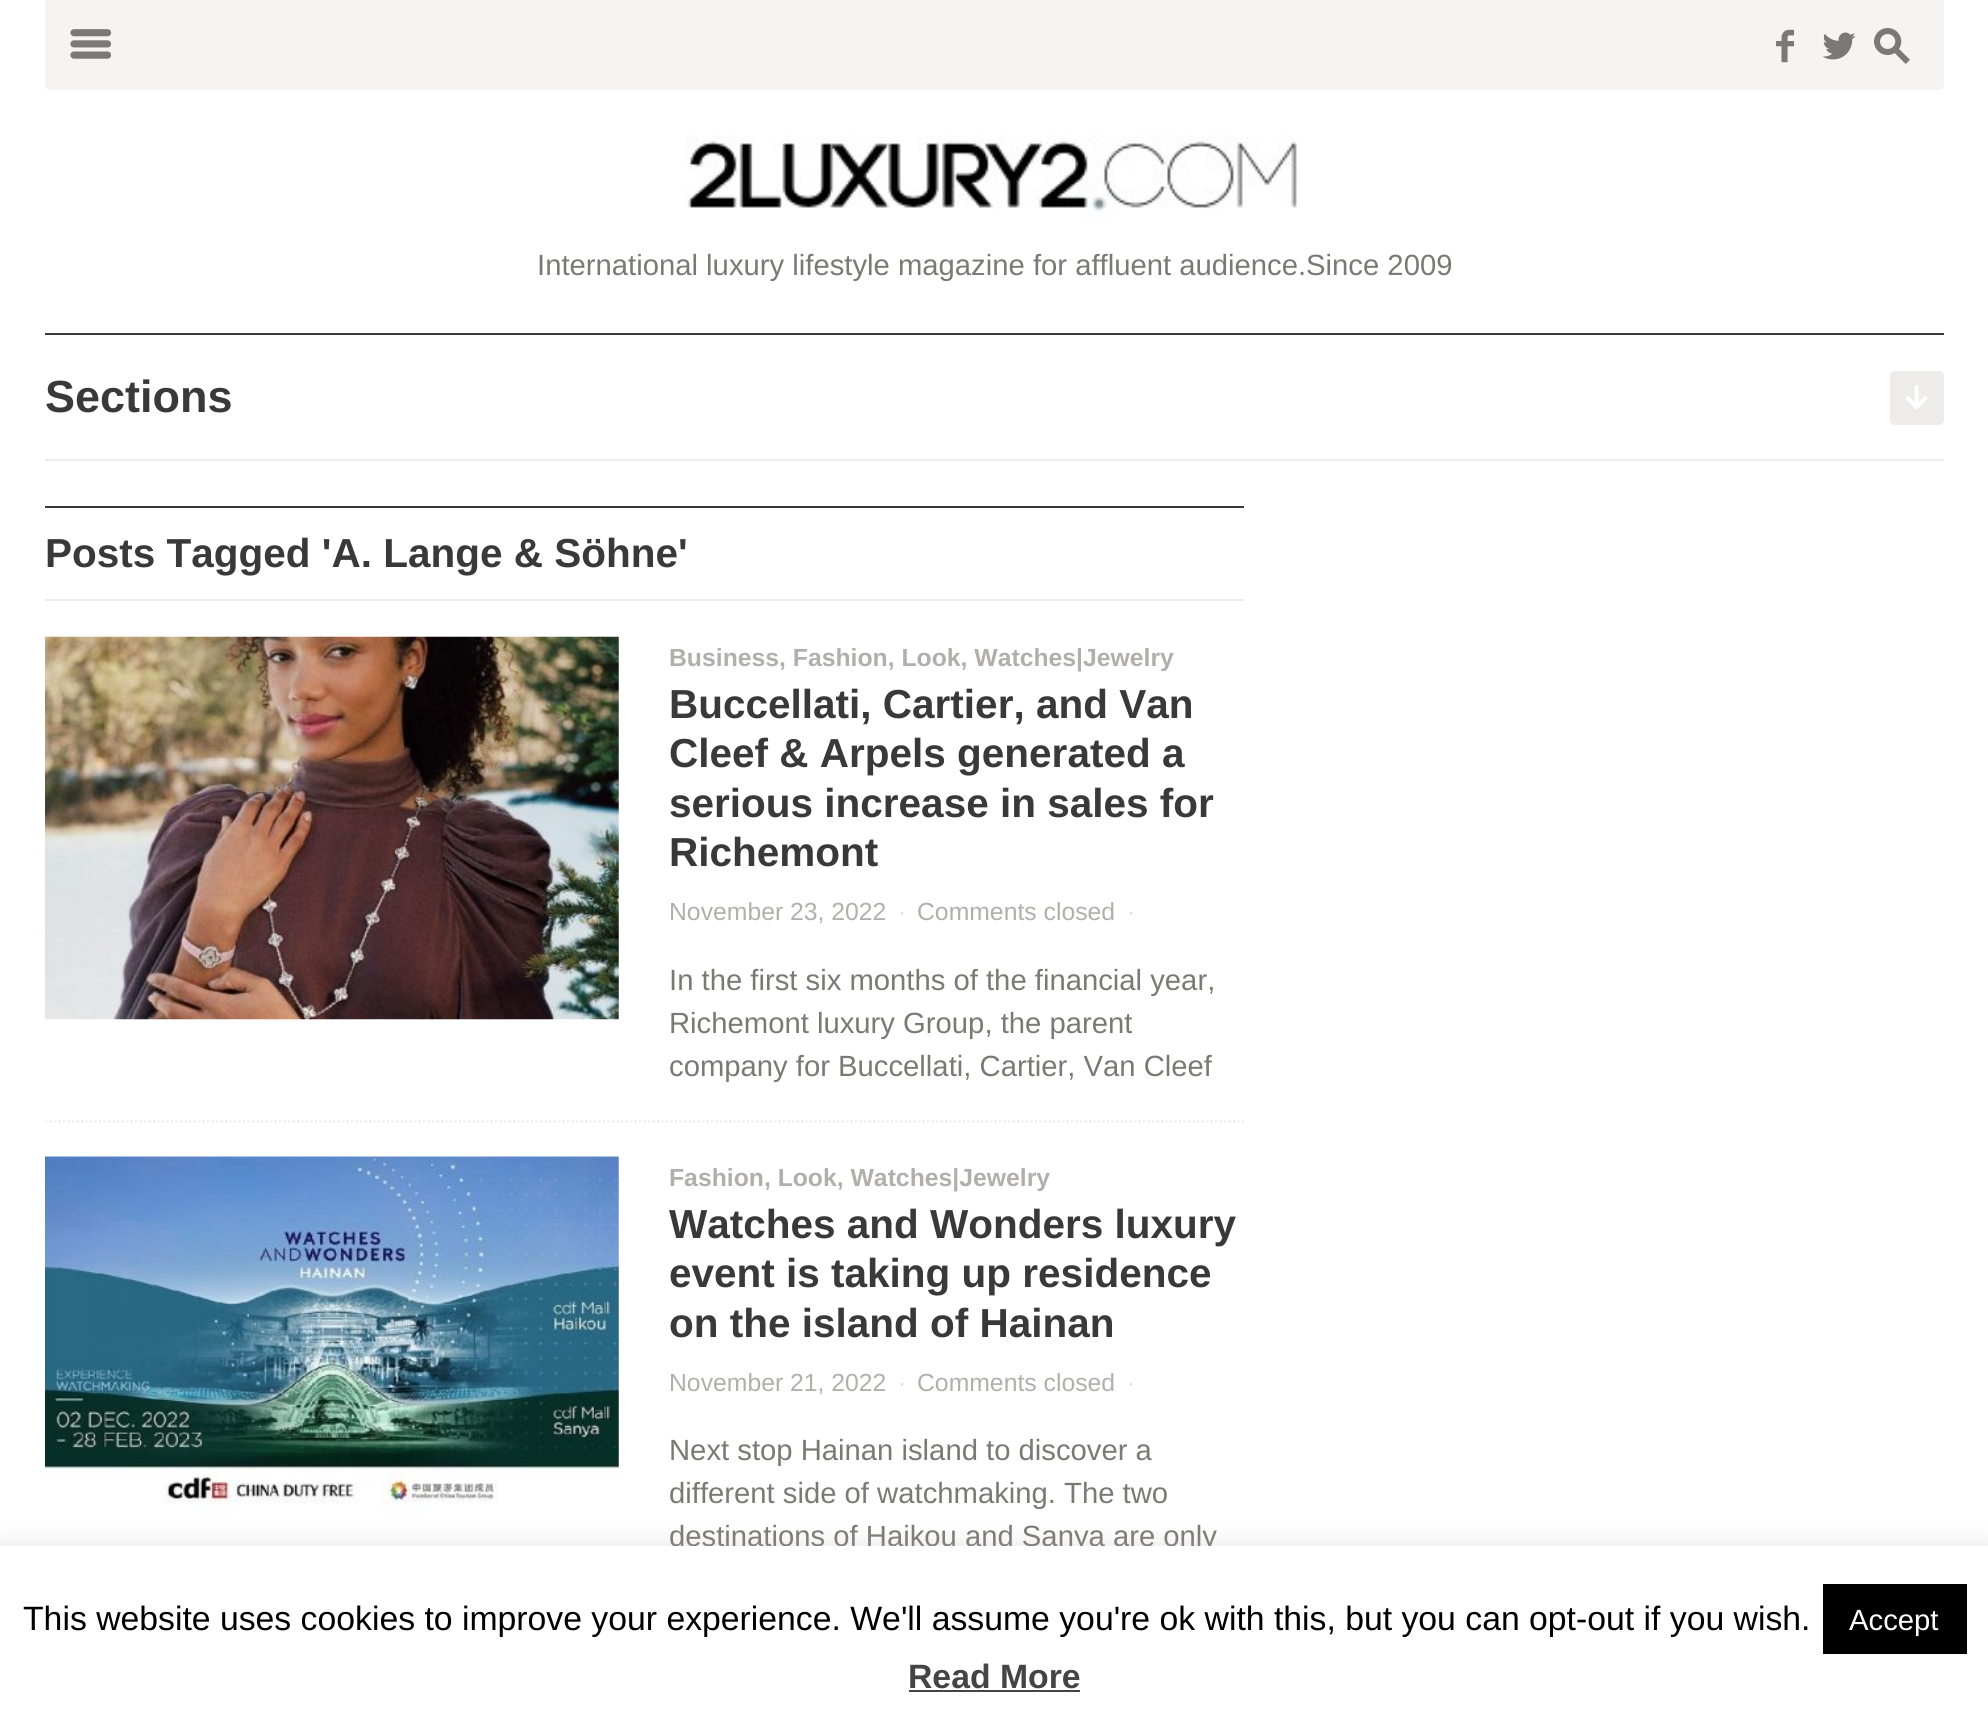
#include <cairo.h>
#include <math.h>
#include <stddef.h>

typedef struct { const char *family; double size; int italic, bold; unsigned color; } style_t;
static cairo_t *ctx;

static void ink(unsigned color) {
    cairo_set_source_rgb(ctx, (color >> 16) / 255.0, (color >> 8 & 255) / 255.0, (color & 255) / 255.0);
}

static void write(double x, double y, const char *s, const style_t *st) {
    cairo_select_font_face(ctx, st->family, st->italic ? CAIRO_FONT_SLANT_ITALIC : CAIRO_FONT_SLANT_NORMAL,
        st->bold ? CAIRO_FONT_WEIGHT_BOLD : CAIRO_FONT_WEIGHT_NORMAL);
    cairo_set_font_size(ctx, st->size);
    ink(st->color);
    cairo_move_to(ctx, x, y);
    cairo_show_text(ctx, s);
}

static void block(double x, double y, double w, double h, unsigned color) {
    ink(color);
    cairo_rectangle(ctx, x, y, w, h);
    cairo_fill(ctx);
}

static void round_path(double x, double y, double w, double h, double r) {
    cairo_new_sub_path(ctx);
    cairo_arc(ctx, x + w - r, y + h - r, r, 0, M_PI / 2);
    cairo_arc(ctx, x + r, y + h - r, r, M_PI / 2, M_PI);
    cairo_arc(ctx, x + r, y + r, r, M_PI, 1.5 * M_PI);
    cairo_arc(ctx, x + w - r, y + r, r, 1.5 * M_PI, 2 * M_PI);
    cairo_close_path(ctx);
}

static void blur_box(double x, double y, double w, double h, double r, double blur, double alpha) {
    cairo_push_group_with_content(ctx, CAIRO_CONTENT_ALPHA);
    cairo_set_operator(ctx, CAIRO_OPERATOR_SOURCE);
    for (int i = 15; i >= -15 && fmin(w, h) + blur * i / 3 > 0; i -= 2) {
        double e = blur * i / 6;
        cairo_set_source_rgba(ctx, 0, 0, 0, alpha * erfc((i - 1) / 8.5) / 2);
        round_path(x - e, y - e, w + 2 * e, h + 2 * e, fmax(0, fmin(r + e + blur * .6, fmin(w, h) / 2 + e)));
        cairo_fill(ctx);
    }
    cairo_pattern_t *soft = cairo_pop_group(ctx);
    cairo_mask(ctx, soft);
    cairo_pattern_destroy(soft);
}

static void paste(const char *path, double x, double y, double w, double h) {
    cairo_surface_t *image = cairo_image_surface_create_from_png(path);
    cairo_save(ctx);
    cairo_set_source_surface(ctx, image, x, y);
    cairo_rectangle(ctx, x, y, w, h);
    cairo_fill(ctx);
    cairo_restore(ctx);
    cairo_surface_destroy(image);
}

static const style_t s1 = {"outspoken", 56, 0, 1, 0x7b7976};
static const style_t s2 = {"outspoken", 36, 0, 0, 0x7b7976};
static const style_t s3 = {"Liberation Sans", 29.25, 0, 0, 0x7b7976};
static const style_t s4 = {"Liberation Sans", 45, 0, 1, 0x3a3939};
static const style_t s5 = {"Liberation Sans", 40.5, 0, 1, 0x3a3939};
static const style_t s6 = {"Liberation Sans", 24.75, 0, 1, 0xb2afab};
static const style_t s7 = {"Liberation Sans", 24.75, 0, 0, 0xb2afab};
static const style_t s8 = {"Liberation Sans", 24.75, 0, 0, 0xe0dfdd};
static const style_t s9 = {"Liberation Sans", 33.75, 0, 0, 0x000000};
static const style_t s10 = {"Liberation Sans", 29.25, 0, 0, 0xffffff};
static const style_t s11 = {"Liberation Sans", 33.75, 0, 1, 0x444444};

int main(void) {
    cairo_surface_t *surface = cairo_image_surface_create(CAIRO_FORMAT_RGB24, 1988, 1717);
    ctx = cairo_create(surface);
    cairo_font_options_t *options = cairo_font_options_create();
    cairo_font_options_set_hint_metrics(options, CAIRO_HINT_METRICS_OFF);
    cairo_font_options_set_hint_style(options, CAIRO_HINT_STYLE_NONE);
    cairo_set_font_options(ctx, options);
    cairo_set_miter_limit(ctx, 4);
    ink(0xffffff);
    cairo_paint(ctx);
    ink(0xf5f4f1);
    cairo_new_path(ctx);
    cairo_move_to(ctx, 45, 0);
    cairo_line_to(ctx, 1944, 0);
    cairo_line_to(ctx, 1944, 85);
    cairo_curve_to(ctx, 1944, 88, 1942, 90, 1939, 90);
    cairo_line_to(ctx, 50, 90);
    cairo_curve_to(ctx, 47, 90, 45, 88, 45, 85);
    cairo_close_path(ctx);
    cairo_fill(ctx);
    write(62, 68, "m", &s1);
    write(1767, 61, "f", &s2);
    write(1821, 61, "w", &s2);
    write(1874, 61, "s", &s2);
    paste("pic1.png", 684, 135, 613, 83);
    write(537, 275, "International luxury lifestyle magazine for affluent audience.Since 2009", &s3);
    block(45, 333, 1899, 2, 0x3a3939);
    block(45, 459, 1899, 2, 0xedece8);
    write(45, 412, "Sections", &s4);
    ink(0xedece8);
    round_path(1890, 371, 54, 54, 5);
    cairo_fill(ctx);
    paste("pic2.png", 1906, 384, 22, 25);
    block(45, 506, 1199, 2, 0x3a3939);
    block(45, 599, 1199, 2, 0xedece8);
    write(45, 567, "Posts Tagged 'A. Lange & Söhne'", &s5);
    cairo_new_path(ctx);
    cairo_move_to(ctx, 45, 1121.5);
    cairo_line_to(ctx, 1244, 1121.5);
    ink(0xedece8);
    cairo_set_line_width(ctx, 2.2);
    cairo_set_dash(ctx, (double[]){2.25, 2.25}, 2, 0);
    cairo_stroke(ctx);
    paste("pic3.png", 45, 636, 574, 384);
    write(669, 666, "Business, Fashion, Look, Watches|Jewelry", &s6);
    write(669, 718, "Buccellati, Cartier, and Van", &s5);
    write(669, 767, "Cleef & Arpels generated a", &s5);
    write(669, 817, "serious increase in sales for", &s5);
    write(669, 866, "Richemont", &s5);
    write(669, 920, "November 23, 2022", &s7);
    write(898, 920, "·", &s8);
    write(917, 920, "Comments closed", &s7);
    write(1127, 920, "·", &s8);
    write(669, 990, "In the first six months of the financial year,", &s3);
    write(669, 1033, "Richemont luxury Group, the parent", &s3);
    write(669, 1076, "company for Buccellati, Cartier, Van Cleef", &s3);
    paste("pic4.png", 45, 1156, 574, 358);
    write(669, 1186, "Fashion, Look, Watches|Jewelry", &s6);
    write(669, 1238, "Watches and Wonders luxury", &s5);
    write(669, 1287, "event is taking up residence", &s5);
    write(669, 1337, "on the island of Hainan", &s5);
    write(669, 1391, "November 21, 2022", &s7);
    write(898, 1391, "·", &s8);
    write(917, 1391, "Comments closed", &s7);
    write(1127, 1391, "·", &s8);
    write(669, 1460, "Next stop Hainan island to discover a", &s3);
    write(669, 1503, "different side of watchmaking. The two", &s3);
    write(669, 1546, "destinations of Haikou and Sanya are only", &s3);
    ink(0xacabab);
    blur_box(0, 1544, 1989, 173, 0, 11, 0.3);
    block(0, 1546, 1988, 171, 0xffffff);
    write(23, 1630, "This website uses cookies to improve your experience. We'll assume you're ok with this, but you can opt-out if you wish.", &s9);
    block(1823, 1584, 144, 70, 0x000000);
    write(1849, 1630, "Accept", &s10);
    write(908, 1688, "Read More", &s11);
    block(909, 1690, 171, 2, 0x444444);
    cairo_surface_write_to_png(surface, "screenshot.png");
    cairo_font_options_destroy(options);
    cairo_destroy(ctx);
    cairo_surface_destroy(surface);
    return 0;
}
